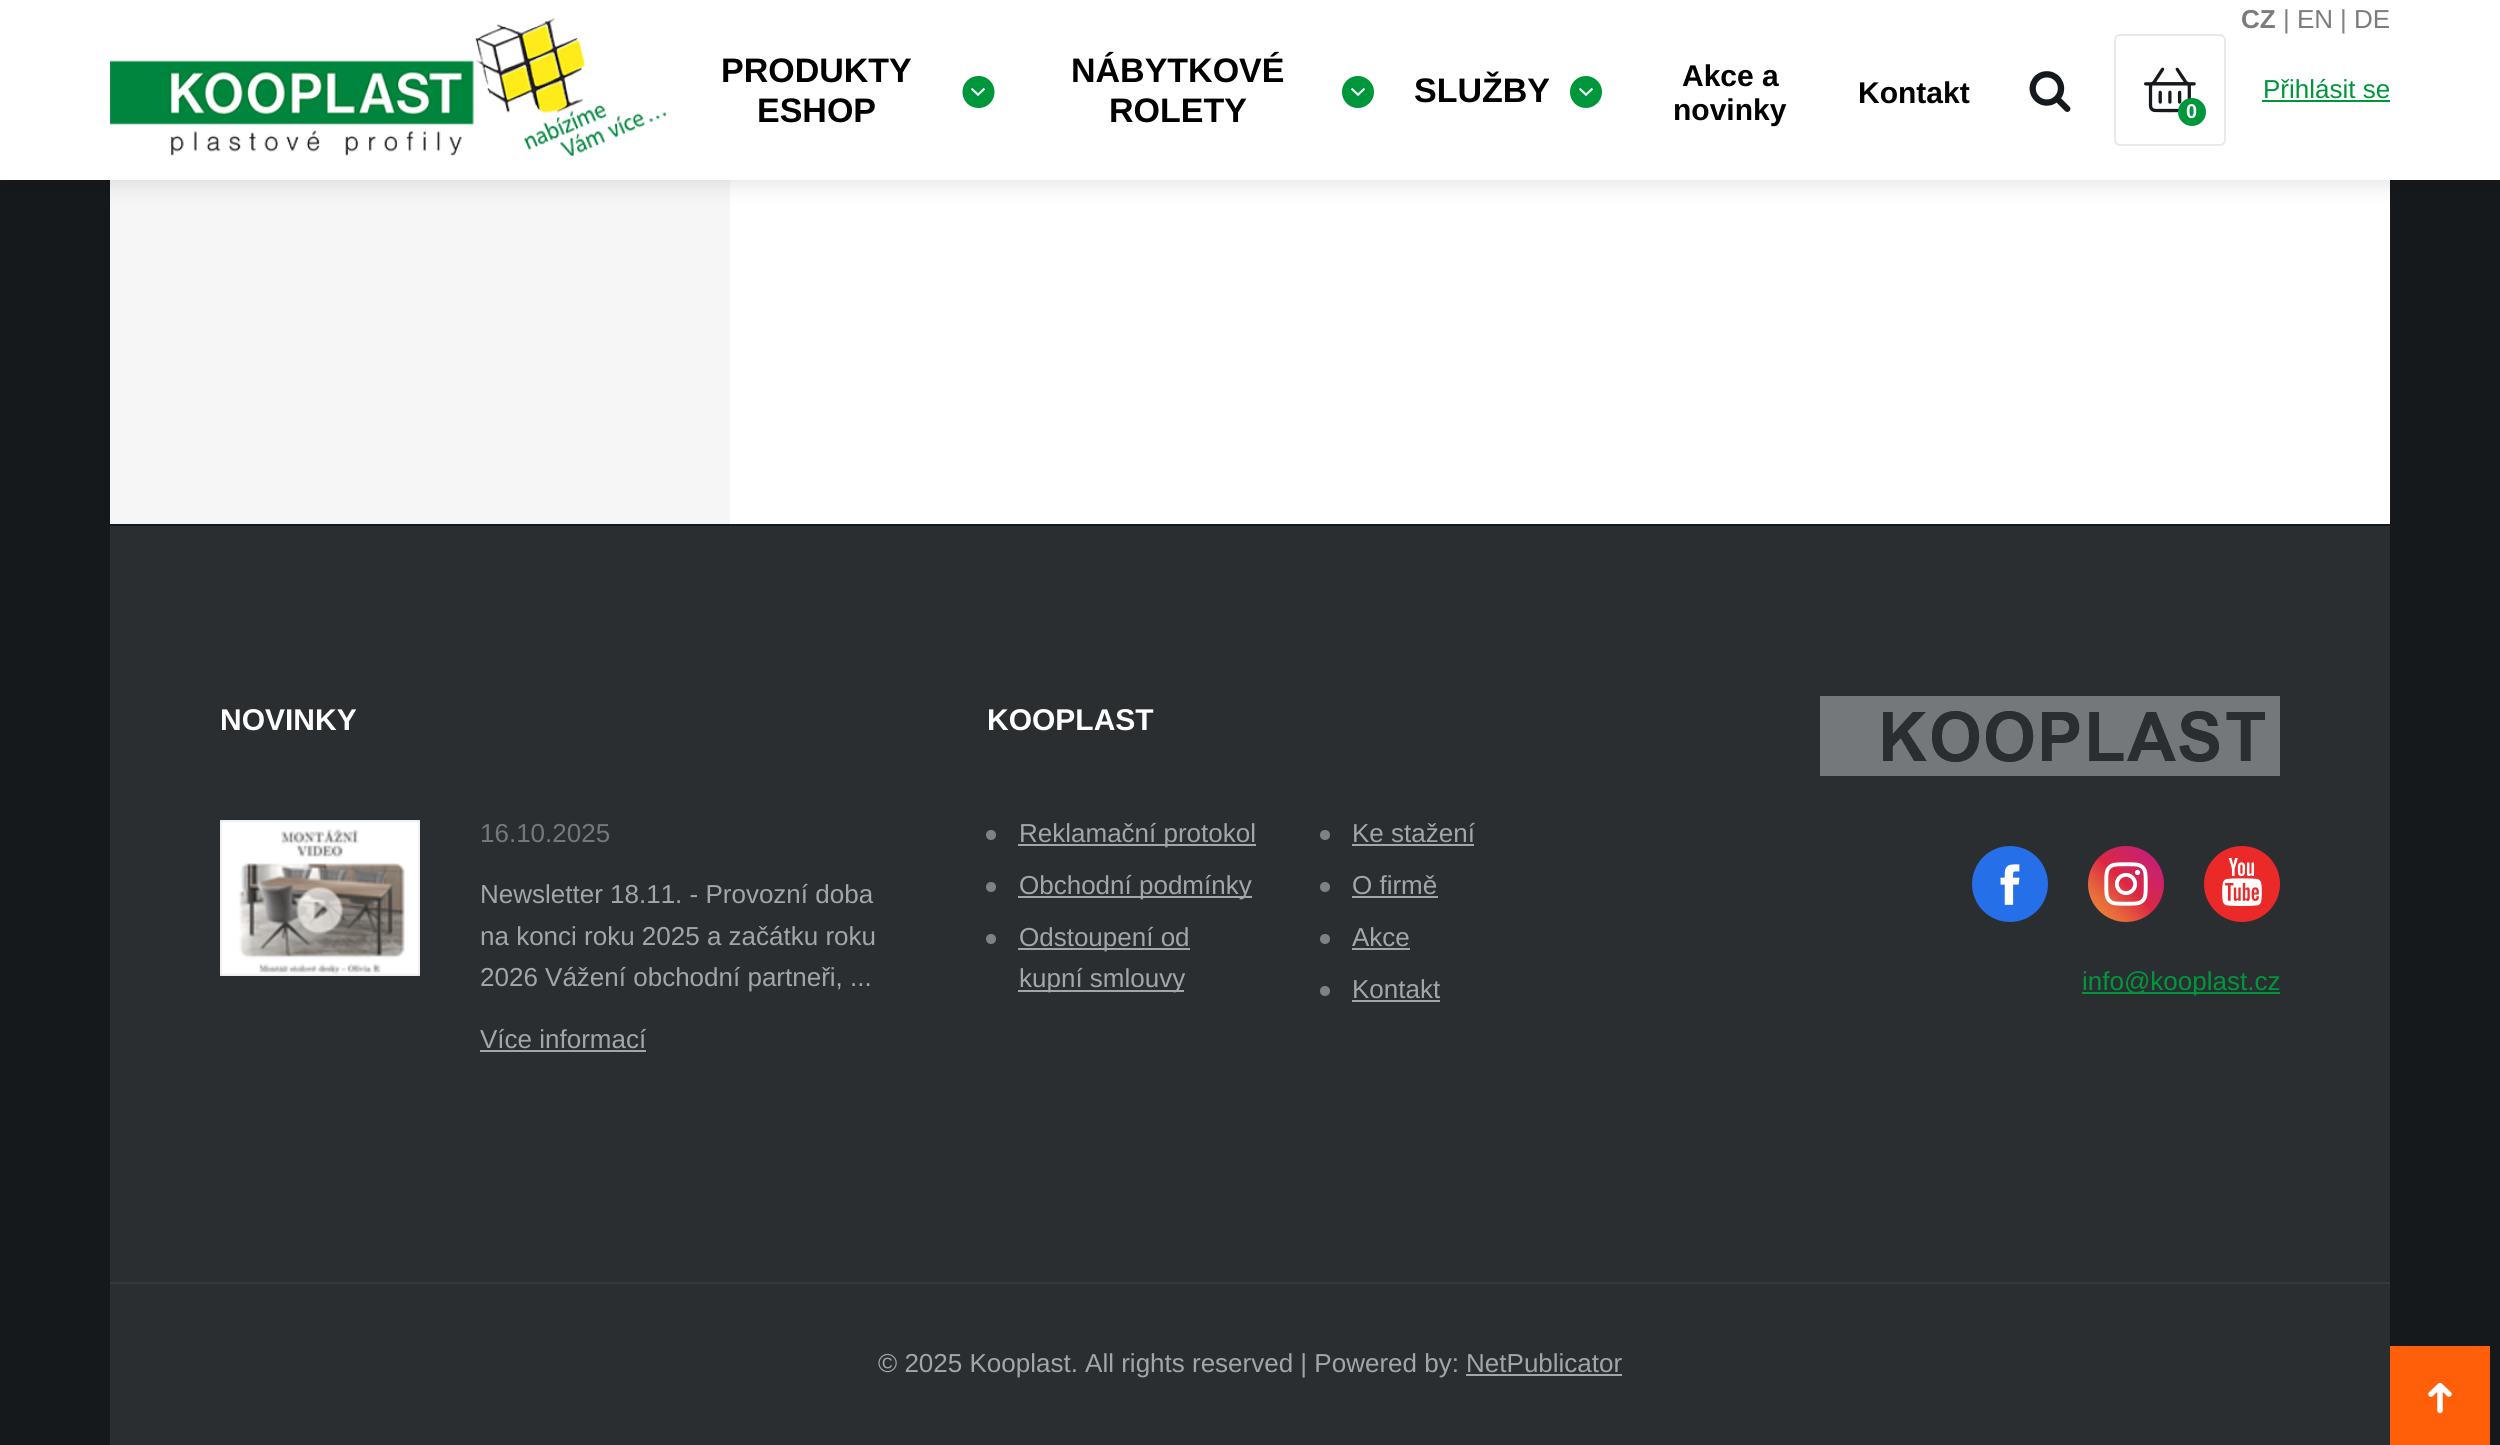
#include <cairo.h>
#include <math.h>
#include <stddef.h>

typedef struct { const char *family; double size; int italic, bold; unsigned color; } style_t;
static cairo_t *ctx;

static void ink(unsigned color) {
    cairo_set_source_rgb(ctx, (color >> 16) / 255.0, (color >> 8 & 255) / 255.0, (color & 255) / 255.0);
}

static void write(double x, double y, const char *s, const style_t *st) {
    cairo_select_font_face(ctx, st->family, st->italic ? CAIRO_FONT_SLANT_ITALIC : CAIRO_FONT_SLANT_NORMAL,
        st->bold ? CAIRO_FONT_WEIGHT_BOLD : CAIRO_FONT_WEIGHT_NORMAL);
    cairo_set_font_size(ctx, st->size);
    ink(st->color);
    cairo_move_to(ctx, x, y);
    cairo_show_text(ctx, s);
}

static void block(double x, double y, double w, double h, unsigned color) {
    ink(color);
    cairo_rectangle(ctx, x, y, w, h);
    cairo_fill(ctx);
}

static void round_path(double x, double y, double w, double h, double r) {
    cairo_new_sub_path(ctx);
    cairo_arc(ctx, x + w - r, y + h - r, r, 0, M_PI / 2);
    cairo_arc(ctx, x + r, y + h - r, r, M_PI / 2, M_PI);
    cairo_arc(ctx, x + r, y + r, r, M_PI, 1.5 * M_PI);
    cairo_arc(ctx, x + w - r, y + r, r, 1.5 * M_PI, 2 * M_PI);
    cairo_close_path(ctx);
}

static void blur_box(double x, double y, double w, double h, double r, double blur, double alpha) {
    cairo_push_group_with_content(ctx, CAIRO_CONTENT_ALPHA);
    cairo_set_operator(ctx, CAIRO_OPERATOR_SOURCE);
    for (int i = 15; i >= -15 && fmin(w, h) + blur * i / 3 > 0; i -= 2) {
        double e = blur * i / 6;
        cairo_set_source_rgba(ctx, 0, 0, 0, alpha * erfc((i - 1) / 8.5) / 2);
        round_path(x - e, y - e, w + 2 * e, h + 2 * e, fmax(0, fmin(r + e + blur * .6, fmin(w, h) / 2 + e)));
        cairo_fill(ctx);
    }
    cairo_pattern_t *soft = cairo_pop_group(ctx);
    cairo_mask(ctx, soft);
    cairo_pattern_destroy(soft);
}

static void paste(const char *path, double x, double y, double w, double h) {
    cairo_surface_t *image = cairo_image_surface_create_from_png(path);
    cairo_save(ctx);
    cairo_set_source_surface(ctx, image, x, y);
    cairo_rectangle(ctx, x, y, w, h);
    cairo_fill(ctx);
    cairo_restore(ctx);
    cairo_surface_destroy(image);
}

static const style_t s1 = {"Liberation Sans", 34, 0, 1, 0x000000};
static const style_t s2 = {"Liberation Sans", 30, 0, 1, 0x000000};
static const style_t s3 = {"Liberation Sans", 26, 0, 1, 0x7c7c7c};
static const style_t s4 = {"Liberation Sans", 26, 0, 0, 0x7e8285};
static const style_t s5 = {"Liberation Sans", 26, 0, 0, 0x7c7c7c};
static const style_t s6 = {"Liberation Sans", 26, 0, 0, 0x00973c};
static const style_t s7 = {"Liberation Sans", 20, 0, 1, 0xffffff};
static const style_t s8 = {"Liberation Sans", 30, 0, 1, 0xffffff};
static const style_t s9 = {"Liberation Sans", 26, 0, 0, 0x74787a};
static const style_t s10 = {"Liberation Sans", 26, 0, 0, 0xa1a6a8};

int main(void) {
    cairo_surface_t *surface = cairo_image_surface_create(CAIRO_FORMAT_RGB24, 2500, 1445);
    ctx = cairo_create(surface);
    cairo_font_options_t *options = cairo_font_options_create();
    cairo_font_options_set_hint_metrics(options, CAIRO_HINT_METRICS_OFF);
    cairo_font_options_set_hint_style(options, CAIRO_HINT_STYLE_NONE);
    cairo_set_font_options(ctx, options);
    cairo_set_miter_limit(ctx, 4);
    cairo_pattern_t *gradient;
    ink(0x16191b);
    cairo_paint(ctx);
    block(730, 180, 1660, 344, 0xffffff);
    block(110, 180, 620, 344, 0xf6f6f7);
    ink(0x000000);
    blur_box(0, 6, 2500, 180, 0, 10, 0.1);
    block(0, 0, 2500, 180, 0xffffff);
    paste("pic1.png", 110, 18, 557, 138);
    write(721, 82, "PRODUKTY", &s1);
    ink(0x00973c);
    cairo_new_path(ctx);
    cairo_move_to(ctx, 978.5, 76);
    cairo_curve_to(ctx, 987.5, 76, 994.5, 83, 994.5, 92);
    cairo_curve_to(ctx, 994.5, 101, 987.5, 108, 978.5, 108);
    cairo_curve_to(ctx, 969.5, 108, 962.5, 101, 962.5, 92);
    cairo_curve_to(ctx, 962.5, 83, 969.5, 76, 978.5, 76);
    cairo_close_path(ctx);
    cairo_fill(ctx);
    paste("pic2.png", 971, 88, 14, 8);
    write(757, 122, "ESHOP", &s1);
    write(1071, 82, "NÁBYTKOVÉ", &s1);
    ink(0x00973c);
    cairo_new_path(ctx);
    cairo_move_to(ctx, 1358, 76);
    cairo_curve_to(ctx, 1366.5, 76, 1374, 83, 1374, 92);
    cairo_curve_to(ctx, 1374, 101, 1366.5, 108, 1358, 108);
    cairo_curve_to(ctx, 1349, 108, 1342, 101, 1342, 92);
    cairo_curve_to(ctx, 1342, 83, 1349, 76, 1358, 76);
    cairo_close_path(ctx);
    cairo_fill(ctx);
    paste("pic2.png", 1351, 88, 14, 8);
    write(1109, 122, "ROLETY", &s1);
    write(1414, 102, "SLUŽBY", &s1);
    ink(0x00973c);
    cairo_new_path(ctx);
    cairo_move_to(ctx, 1586, 76);
    cairo_curve_to(ctx, 1594.5, 76, 1602, 83, 1602, 92);
    cairo_curve_to(ctx, 1602, 101, 1594.5, 108, 1586, 108);
    cairo_curve_to(ctx, 1577, 108, 1570, 101, 1570, 92);
    cairo_curve_to(ctx, 1570, 83, 1577, 76, 1586, 76);
    cairo_close_path(ctx);
    cairo_fill(ctx);
    paste("pic2.png", 1579, 88, 14, 8);
    write(1682, 86, "Akce a", &s2);
    write(1673, 120, "novinky", &s2);
    write(1858, 103, "Kontakt", &s2);
    paste("pic3.png", 2029, 71, 42, 41);
    write(2241, 28, "CZ", &s3);
    write(2283, 28, "|", &s4);
    write(2297, 28, "EN", &s5);
    write(2340, 28, "|", &s4);
    write(2354, 28, "DE", &s5);
    write(2263, 98, "Přihlásit se", &s6);
    block(2262, 100, 128, 2, 0x00973c);
    paste("pic4.png", 2144, 67, 52, 46);
    cairo_arc(ctx, 2192, 112, 14, 0, 2 * M_PI);
    cairo_fill(ctx);
    round_path(2115, 35, 110, 110, 5);
    ink(0xe9e9e9);
    cairo_stroke(ctx);
    write(2186, 118, "0", &s7);
    block(110, 526, 2280, 919, 0x2b2e30);
    write(220, 730, "NOVINKY", &s8);
    paste("pic5.png", 220, 820, 200, 156);
    write(480, 842, "16.10.2025", &s9);
    write(480, 903, "Newsletter 18.11. - Provozní doba", &s10);
    write(480, 945, "na konci roku 2025 a začátku roku", &s10);
    write(480, 986, "2026 Vážení obchodní partneři, ...", &s10);
    write(480, 1048, "Více informací", &s10);
    block(480, 1050, 166, 2, 0xa1a6a8);
    write(987, 730, "KOOPLAST", &s8);
    ink(0x7e8285);
    cairo_new_path(ctx);
    cairo_arc(ctx, 991, 835, 5, 0, 2 * M_PI);
    cairo_fill(ctx);
    block(1018, 844, 238, 2, 0xa1a6a8);
    write(1019, 842, "Reklamační protokol", &s10);
    ink(0x7e8285);
    cairo_new_path(ctx);
    cairo_arc(ctx, 1325, 835, 5, 0, 2 * M_PI);
    cairo_fill(ctx);
    write(1352, 842, "Ke stažení", &s10);
    block(1352, 844, 122, 2, 0xa1a6a8);
    ink(0x7e8285);
    cairo_new_path(ctx);
    cairo_arc(ctx, 991, 887, 5, 0, 2 * M_PI);
    cairo_fill(ctx);
    block(1018, 896, 234, 2, 0xa1a6a8);
    write(1019, 894, "Obchodní podmínky", &s10);
    ink(0x7e8285);
    cairo_new_path(ctx);
    cairo_arc(ctx, 1325, 887, 5, 0, 2 * M_PI);
    cairo_fill(ctx);
    write(1352, 894, "O firmě", &s10);
    block(1352, 896, 86, 2, 0xa1a6a8);
    ink(0x7e8285);
    cairo_new_path(ctx);
    cairo_arc(ctx, 991, 939, 5, 0, 2 * M_PI);
    cairo_fill(ctx);
    block(1018, 948, 172, 2, 0xa1a6a8);
    write(1019, 946, "Odstoupení od", &s10);
    block(1018, 990, 166, 2, 0xa1a6a8);
    write(1019, 987, "kupní smlouvy", &s10);
    ink(0x7e8285);
    cairo_new_path(ctx);
    cairo_arc(ctx, 1325, 939, 5, 0, 2 * M_PI);
    cairo_fill(ctx);
    write(1352, 946, "Akce", &s10);
    block(1352, 948, 58, 2, 0xa1a6a8);
    ink(0x7e8285);
    cairo_new_path(ctx);
    cairo_arc(ctx, 1325, 991, 5, 0, 2 * M_PI);
    cairo_fill(ctx);
    write(1352, 998, "Kontakt", &s10);
    block(1352, 1000, 88, 2, 0xa1a6a8);
    paste("pic6.png", 1820, 696, 460, 80);
    ink(0x256fe9);
    cairo_arc(ctx, 2010, 884, 38, 0, 2 * M_PI);
    cairo_fill(ctx);
    paste("pic7.png", 2000, 864, 20, 41);
    gradient = cairo_pattern_create_linear(2088, 922, 2164, 846);
    cairo_pattern_add_color_stop_rgba(gradient, 0, 0.941, 0.58, 0.2, 1);
    cairo_pattern_add_color_stop_rgba(gradient, 0.25, 0.902, 0.408, 0.235, 1);
    cairo_pattern_add_color_stop_rgba(gradient, 0.5, 0.863, 0.153, 0.263, 1);
    cairo_pattern_add_color_stop_rgba(gradient, 0.75, 0.8, 0.137, 0.4, 1);
    cairo_pattern_add_color_stop_rgba(gradient, 1, 0.737, 0.094, 0.533, 1);
    cairo_set_source(ctx, gradient);
    cairo_pattern_destroy(gradient);
    cairo_arc(ctx, 2126, 884, 38, 0, 2 * M_PI);
    cairo_fill(ctx);
    paste("pic8.png", 2104, 862, 44, 44);
    ink(0xec2929);
    cairo_arc(ctx, 2242, 884, 38, 0, 2 * M_PI);
    cairo_fill(ctx);
    paste("pic9.png", 2222, 858, 40, 48);
    block(2082, 992, 198, 2, 0x00973c);
    write(2082, 990, "info@kooplast.cz", &s6);
    block(110, 1282, 2280, 2, 0x36393b);
    write(878, 1372, "© 2025 Kooplast. All rights reserved | Powered by: NetPublicator", &s10);
    block(1466, 1374, 156, 2, 0xa1a6a8);
    block(2390, 1346, 100, 99, 0xff5f08);
    paste("pic10.png", 2428, 1382, 24, 32);
    cairo_surface_write_to_png(surface, "screenshot.png");
    cairo_font_options_destroy(options);
    cairo_destroy(ctx);
    cairo_surface_destroy(surface);
    return 0;
}
